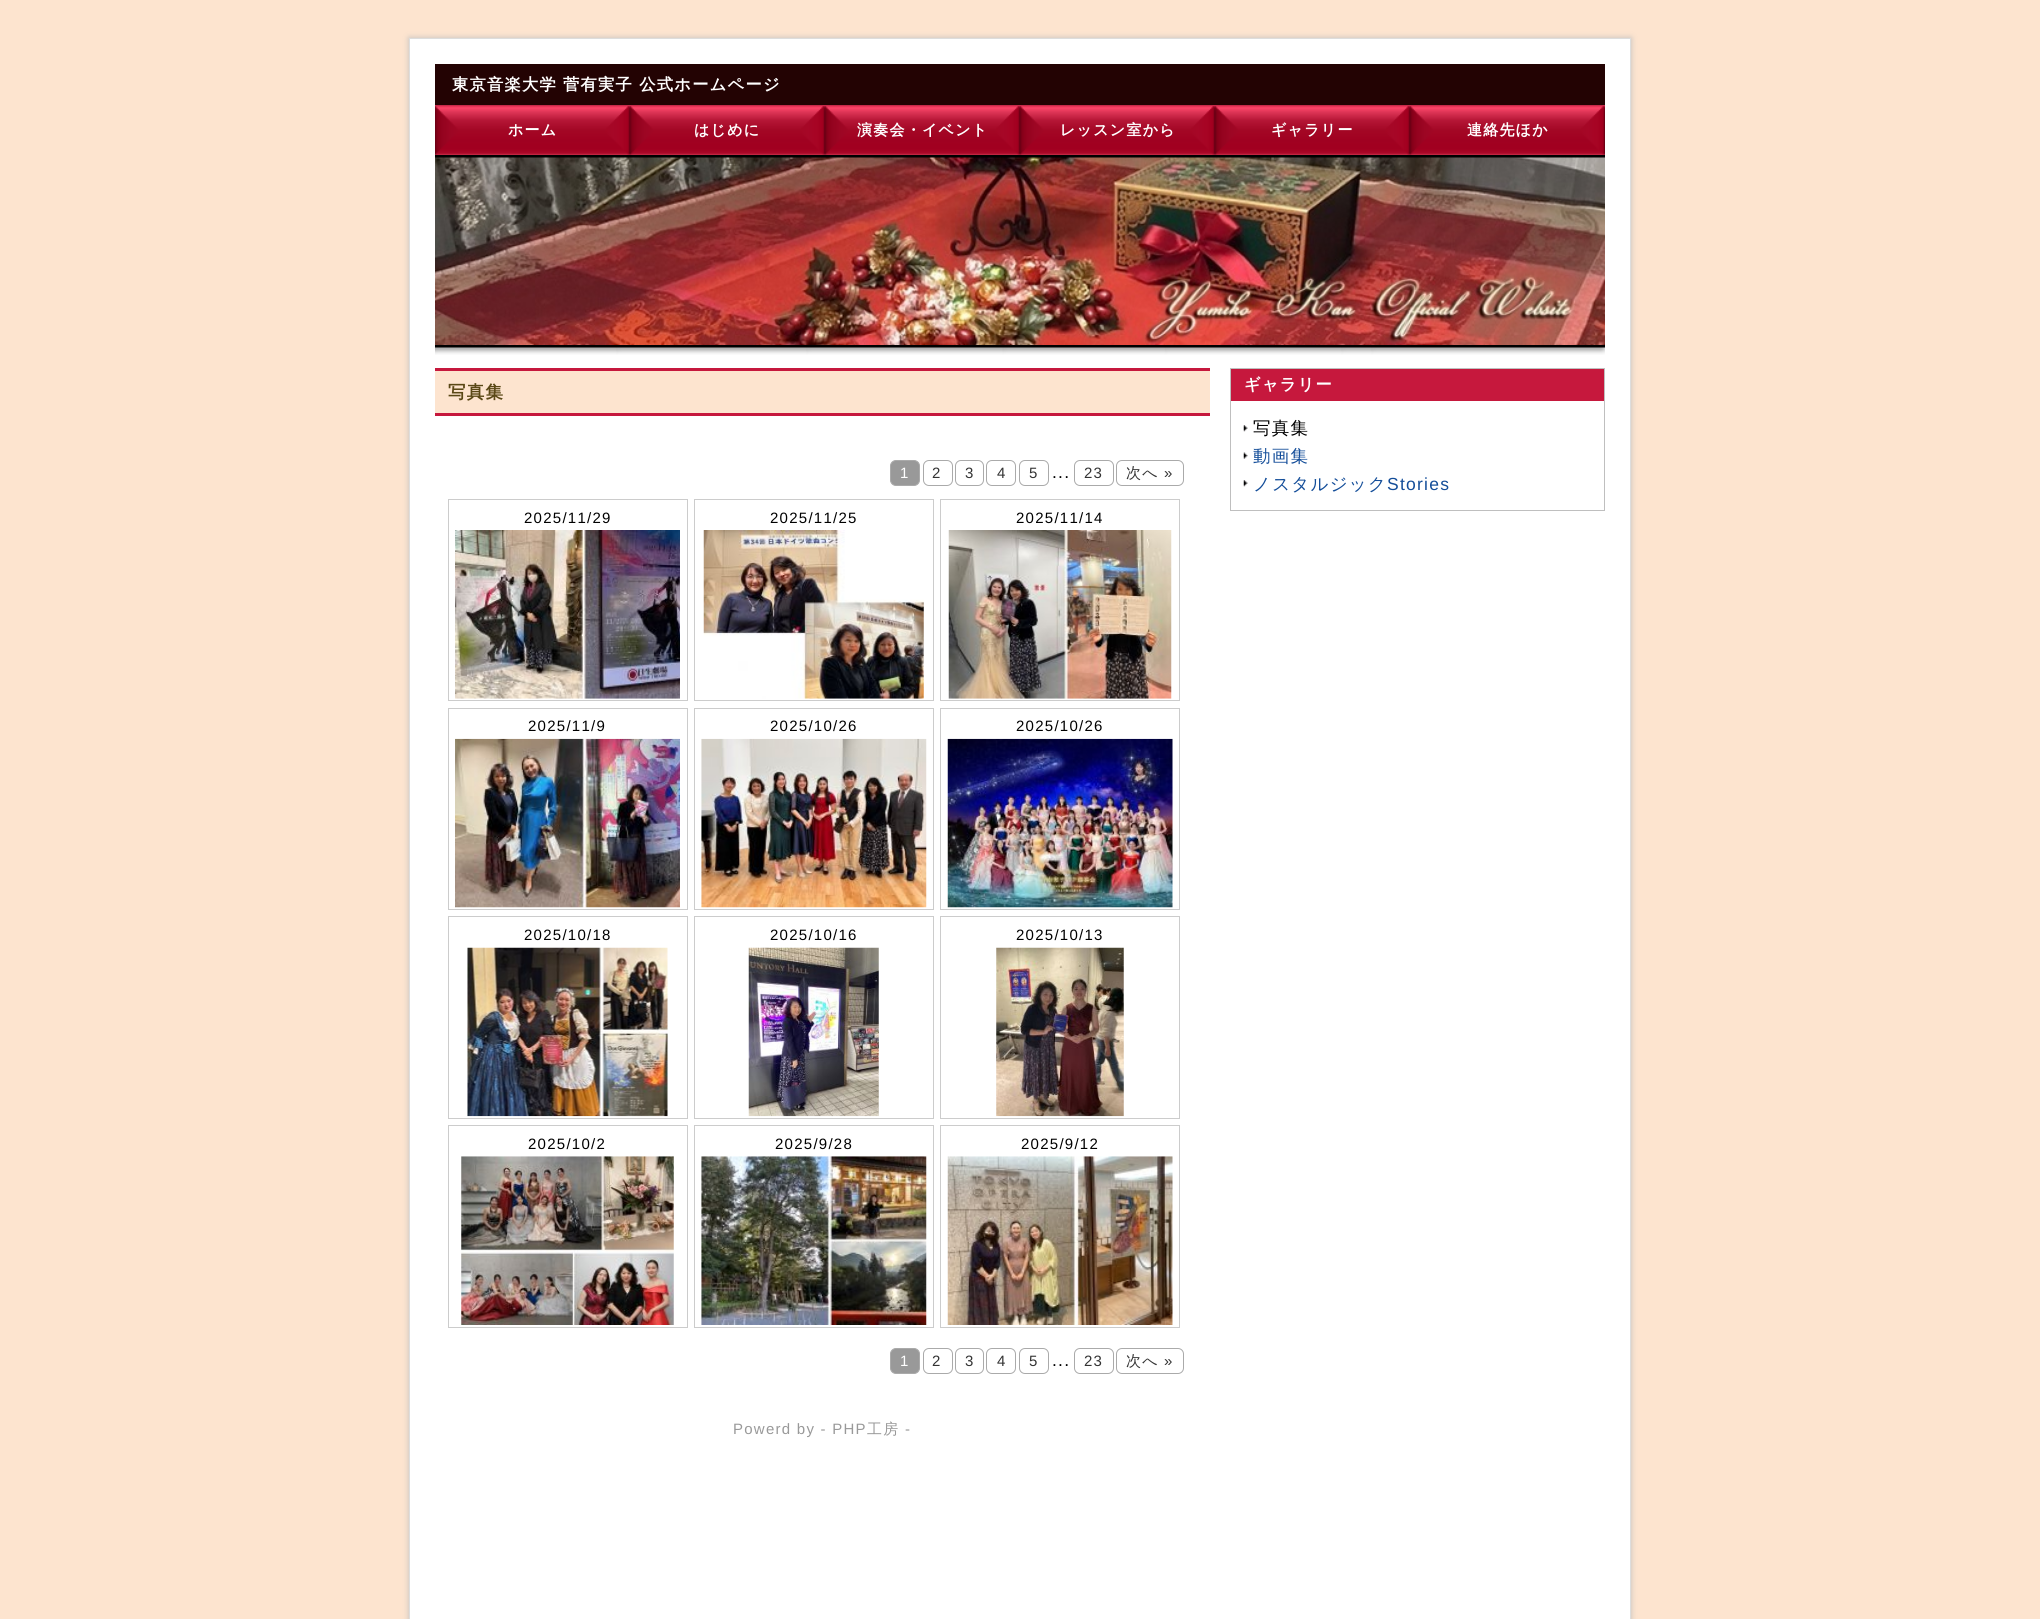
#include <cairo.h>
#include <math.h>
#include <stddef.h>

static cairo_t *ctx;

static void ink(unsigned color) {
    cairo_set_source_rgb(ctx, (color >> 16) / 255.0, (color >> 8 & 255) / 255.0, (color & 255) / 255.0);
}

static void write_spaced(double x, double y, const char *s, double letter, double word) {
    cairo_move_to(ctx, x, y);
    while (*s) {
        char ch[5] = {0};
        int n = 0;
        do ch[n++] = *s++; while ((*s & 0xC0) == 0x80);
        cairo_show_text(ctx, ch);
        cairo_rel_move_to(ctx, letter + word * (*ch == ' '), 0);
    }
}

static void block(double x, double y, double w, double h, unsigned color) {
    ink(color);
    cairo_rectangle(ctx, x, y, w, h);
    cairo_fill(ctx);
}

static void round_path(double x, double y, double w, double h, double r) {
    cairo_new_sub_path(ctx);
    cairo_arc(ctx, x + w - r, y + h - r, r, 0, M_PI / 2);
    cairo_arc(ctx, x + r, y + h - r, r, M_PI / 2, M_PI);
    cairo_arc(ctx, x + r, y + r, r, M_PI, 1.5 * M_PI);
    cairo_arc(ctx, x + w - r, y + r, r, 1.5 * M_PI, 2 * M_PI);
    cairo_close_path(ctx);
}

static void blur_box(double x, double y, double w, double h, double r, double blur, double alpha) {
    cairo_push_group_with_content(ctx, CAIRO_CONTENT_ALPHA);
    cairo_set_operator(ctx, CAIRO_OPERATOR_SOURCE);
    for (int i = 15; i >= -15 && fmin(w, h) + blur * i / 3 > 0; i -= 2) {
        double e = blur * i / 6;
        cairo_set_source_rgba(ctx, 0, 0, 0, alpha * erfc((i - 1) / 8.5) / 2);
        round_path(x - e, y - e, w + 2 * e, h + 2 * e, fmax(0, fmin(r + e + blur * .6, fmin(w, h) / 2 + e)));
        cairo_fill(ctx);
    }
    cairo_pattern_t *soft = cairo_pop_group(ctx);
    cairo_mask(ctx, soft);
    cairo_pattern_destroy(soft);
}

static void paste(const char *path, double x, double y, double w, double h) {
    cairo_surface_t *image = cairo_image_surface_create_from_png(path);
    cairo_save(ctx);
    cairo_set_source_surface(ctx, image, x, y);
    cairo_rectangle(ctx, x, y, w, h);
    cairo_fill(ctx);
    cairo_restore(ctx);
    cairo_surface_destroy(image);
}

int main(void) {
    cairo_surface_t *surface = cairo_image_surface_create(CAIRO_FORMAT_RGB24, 2040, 1619);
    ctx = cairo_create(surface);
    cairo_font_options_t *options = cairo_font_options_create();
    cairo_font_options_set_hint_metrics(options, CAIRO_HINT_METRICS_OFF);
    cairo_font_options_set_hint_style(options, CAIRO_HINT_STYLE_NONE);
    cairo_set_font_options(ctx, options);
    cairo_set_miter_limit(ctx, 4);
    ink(0xfde4cf);
    cairo_paint(ctx);
    ink(0xbfbfbf);
    blur_box(409, 38, 1222, 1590, 0, 3, 1);
    ink(0xffffff);
    cairo_rectangle(ctx, 409.5, 38.5, 1221, 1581);
    cairo_fill_preserve(ctx);
    ink(0xdddddd);
    cairo_set_line_width(ctx, 1);
    cairo_stroke(ctx);
    block(435, 64, 1170, 41, 0x230303);
    cairo_select_font_face(ctx, "WenQuanYi Zen Hei", CAIRO_FONT_SLANT_NORMAL, CAIRO_FONT_WEIGHT_BOLD);
    cairo_set_font_size(ctx, 16.25);
    ink(0xffffff);
    write_spaced(452, 90, "東京音楽大学 菅有実子 公式ホームページ", 1.25, 0);
    paste("pic1.png", 435, 105, 195, 50);
    cairo_set_font_size(ctx, 15);
    write_spaced(508, 135, "ホーム", 1.25, 0);
    paste("pic2.png", 630, 105, 195, 50);
    write_spaced(694, 135, "はじめに", 1.25, 0);
    paste("pic3.png", 825, 105, 195, 50);
    write_spaced(857, 135, "演奏会・イベント", 1.25, 0);
    paste("pic2.png", 1020, 105, 195, 50);
    write_spaced(1060, 135, "レッスン室から", 1.25, 0);
    paste("pic2.png", 1215, 105, 195, 50);
    write_spaced(1271, 135, "ギャラリー", 1.25, 0);
    paste("pic2.png", 1410, 105, 195, 50);
    write_spaced(1467, 135, "連絡先ほか", 1.25, 0);
    block(435, 155, 1170, 3, 0x000000);
    paste("pic4.png", 435, 157, 1170, 188);
    block(435, 345, 1170, 3, 0x000000);
    paste("pic5.png", 435, 347, 1170, 8);
    block(435, 371, 775, 42, 0xfde4cf);
    block(435, 368, 775, 3, 0xc6183d);
    block(435, 413, 775, 3, 0xc6183d);
    cairo_set_font_size(ctx, 17.5);
    ink(0x5a4816);
    write_spaced(448, 398, "写真集", 1.25, 0);
    ink(0x999999);
    round_path(890.5, 460.5, 29, 25, 5.5);
    cairo_fill_preserve(ctx);
    ink(0xaaaaaa);
    cairo_stroke(ctx);
    cairo_select_font_face(ctx, "Liberation Sans", CAIRO_FONT_SLANT_NORMAL, CAIRO_FONT_WEIGHT_NORMAL);
    cairo_set_font_size(ctx, 15);
    ink(0xffffff);
    write_spaced(900, 478, "1", 1.25, 0);
    round_path(923.5, 460.5, 29, 25, 5.5);
    ink(0xaaaaaa);
    cairo_stroke(ctx);
    ink(0x333333);
    write_spaced(932, 478, "2", 1.25, 0);
    round_path(955.5, 460.5, 28, 25, 5.5);
    ink(0xaaaaaa);
    cairo_stroke(ctx);
    ink(0x333333);
    write_spaced(965, 478, "3", 1.25, 0);
    round_path(986.5, 460.5, 29, 25, 5.5);
    ink(0xaaaaaa);
    cairo_stroke(ctx);
    ink(0x333333);
    write_spaced(997, 478, "4", 1.25, 0);
    round_path(1019.5, 460.5, 29, 25, 5.5);
    ink(0xaaaaaa);
    cairo_stroke(ctx);
    ink(0x333333);
    write_spaced(1029, 478, "5", 1.25, 0);
    cairo_set_font_size(ctx, 17.5);
    ink(0x000000);
    write_spaced(1052, 478, "...", 1.25, 0);
    round_path(1074.5, 460.5, 39, 25, 5.5);
    ink(0xaaaaaa);
    cairo_stroke(ctx);
    cairo_set_font_size(ctx, 15);
    ink(0x333333);
    write_spaced(1084, 478, "23", 1.25, 0);
    round_path(1116.5, 460.5, 67, 25, 5.5);
    ink(0xaaaaaa);
    cairo_stroke(ctx);
    cairo_select_font_face(ctx, "WenQuanYi Zen Hei Medium", CAIRO_FONT_SLANT_NORMAL, CAIRO_FONT_WEIGHT_NORMAL);
    ink(0x333333);
    write_spaced(1126, 478, "次へ", 1.25, 0);
    cairo_select_font_face(ctx, "Liberation Sans", CAIRO_FONT_SLANT_NORMAL, CAIRO_FONT_WEIGHT_NORMAL);
    write_spaced(1164, 478, "»", 1.25, 0);
    cairo_rectangle(ctx, 448.5, 499.5, 239, 201);
    ink(0xcccccc);
    cairo_stroke(ctx);
    ink(0x000000);
    write_spaced(524, 523, "2025/11/29", 1.25, 0);
    paste("pic6.png", 455, 530, 225, 169);
    cairo_rectangle(ctx, 694.5, 499.5, 239, 201);
    ink(0xcccccc);
    cairo_stroke(ctx);
    ink(0x000000);
    write_spaced(770, 523, "2025/11/25", 1.25, 0);
    paste("pic7.png", 703, 530, 221, 169);
    cairo_rectangle(ctx, 940.5, 499.5, 239, 201);
    ink(0xcccccc);
    cairo_stroke(ctx);
    ink(0x000000);
    write_spaced(1016, 523, "2025/11/14", 1.25, 0);
    paste("pic8.png", 948, 530, 224, 169);
    cairo_rectangle(ctx, 448.5, 708.5, 239, 201);
    ink(0xcccccc);
    cairo_stroke(ctx);
    ink(0x000000);
    write_spaced(528, 731, "2025/11/9", 1.25, 0);
    paste("pic9.png", 455, 738, 225, 170);
    cairo_rectangle(ctx, 694.5, 708.5, 239, 201);
    ink(0xcccccc);
    cairo_stroke(ctx);
    ink(0x000000);
    write_spaced(770, 731, "2025/10/26", 1.25, 0);
    paste("pic10.png", 701, 738, 226, 170);
    cairo_rectangle(ctx, 940.5, 708.5, 239, 201);
    ink(0xcccccc);
    cairo_stroke(ctx);
    ink(0x000000);
    write_spaced(1016, 731, "2025/10/26", 1.25, 0);
    paste("pic11.png", 947, 738, 226, 170);
    cairo_rectangle(ctx, 448.5, 916.5, 239, 202);
    ink(0xcccccc);
    cairo_stroke(ctx);
    ink(0x000000);
    write_spaced(524, 940, "2025/10/18", 1.25, 0);
    paste("pic12.png", 467, 947, 201, 170);
    cairo_rectangle(ctx, 694.5, 916.5, 239, 202);
    ink(0xcccccc);
    cairo_stroke(ctx);
    ink(0x000000);
    write_spaced(770, 940, "2025/10/16", 1.25, 0);
    paste("pic13.png", 748, 947, 131, 170);
    cairo_rectangle(ctx, 940.5, 916.5, 239, 202);
    ink(0xcccccc);
    cairo_stroke(ctx);
    ink(0x000000);
    write_spaced(1016, 940, "2025/10/13", 1.25, 0);
    paste("pic14.png", 996, 947, 128, 170);
    cairo_rectangle(ctx, 448.5, 1125.5, 239, 202);
    ink(0xcccccc);
    cairo_stroke(ctx);
    ink(0x000000);
    write_spaced(528, 1149, "2025/10/2", 1.25, 0);
    paste("pic15.png", 461, 1156, 213, 169);
    cairo_rectangle(ctx, 694.5, 1125.5, 239, 202);
    ink(0xcccccc);
    cairo_stroke(ctx);
    ink(0x000000);
    write_spaced(775, 1149, "2025/9/28", 1.25, 0);
    paste("pic16.png", 701, 1156, 226, 169);
    cairo_rectangle(ctx, 940.5, 1125.5, 239, 202);
    ink(0xcccccc);
    cairo_stroke(ctx);
    ink(0x000000);
    write_spaced(1021, 1149, "2025/9/12", 1.25, 0);
    paste("pic17.png", 947, 1156, 226, 169);
    ink(0x999999);
    round_path(890.5, 1348.5, 29, 25, 5.5);
    cairo_fill_preserve(ctx);
    ink(0xaaaaaa);
    cairo_stroke(ctx);
    ink(0xffffff);
    write_spaced(900, 1366, "1", 1.25, 0);
    round_path(923.5, 1348.5, 29, 25, 5.5);
    ink(0xaaaaaa);
    cairo_stroke(ctx);
    ink(0x333333);
    write_spaced(932, 1366, "2", 1.25, 0);
    round_path(955.5, 1348.5, 28, 25, 5.5);
    ink(0xaaaaaa);
    cairo_stroke(ctx);
    ink(0x333333);
    write_spaced(965, 1366, "3", 1.25, 0);
    round_path(986.5, 1348.5, 29, 25, 5.5);
    ink(0xaaaaaa);
    cairo_stroke(ctx);
    ink(0x333333);
    write_spaced(997, 1366, "4", 1.25, 0);
    round_path(1019.5, 1348.5, 29, 25, 5.5);
    ink(0xaaaaaa);
    cairo_stroke(ctx);
    ink(0x333333);
    write_spaced(1029, 1366, "5", 1.25, 0);
    cairo_set_font_size(ctx, 17.5);
    ink(0x000000);
    write_spaced(1052, 1366, "...", 1.25, 0);
    round_path(1074.5, 1348.5, 39, 25, 5.5);
    ink(0xaaaaaa);
    cairo_stroke(ctx);
    cairo_set_font_size(ctx, 15);
    ink(0x333333);
    write_spaced(1084, 1366, "23", 1.25, 0);
    round_path(1116.5, 1348.5, 67, 25, 5.5);
    ink(0xaaaaaa);
    cairo_stroke(ctx);
    cairo_select_font_face(ctx, "WenQuanYi Zen Hei Medium", CAIRO_FONT_SLANT_NORMAL, CAIRO_FONT_WEIGHT_NORMAL);
    ink(0x333333);
    write_spaced(1126, 1366, "次へ", 1.25, 0);
    cairo_select_font_face(ctx, "Liberation Sans", CAIRO_FONT_SLANT_NORMAL, CAIRO_FONT_WEIGHT_NORMAL);
    write_spaced(1164, 1366, "»", 1.25, 0);
    ink(0x999999);
    write_spaced(733, 1434, "Powerd by - PHP", 1.25, 0);
    cairo_select_font_face(ctx, "WenQuanYi Zen Hei Medium", CAIRO_FONT_SLANT_NORMAL, CAIRO_FONT_WEIGHT_NORMAL);
    write_spaced(867, 1434, "工房", 1.25, 0);
    cairo_select_font_face(ctx, "Liberation Sans", CAIRO_FONT_SLANT_NORMAL, CAIRO_FONT_WEIGHT_NORMAL);
    write_spaced(905, 1434, "-", 1.25, 0);
    cairo_rectangle(ctx, 1230.5, 368.5, 374, 142);
    ink(0xbfbfbf);
    cairo_stroke(ctx);
    block(1231, 369, 373, 32, 0xc6183d);
    cairo_select_font_face(ctx, "WenQuanYi Zen Hei", CAIRO_FONT_SLANT_NORMAL, CAIRO_FONT_WEIGHT_BOLD);
    cairo_set_font_size(ctx, 16.25);
    ink(0xffffff);
    write_spaced(1244, 390, "ギャラリー", 1.25, 0);
    paste("pic18.png", 1243, 425, 5, 7);
    cairo_select_font_face(ctx, "WenQuanYi Zen Hei Medium", CAIRO_FONT_SLANT_NORMAL, CAIRO_FONT_WEIGHT_NORMAL);
    cairo_set_font_size(ctx, 17.5);
    ink(0x000000);
    write_spaced(1253, 434, "写真集", 1.25, 0);
    paste("pic19.png", 1243, 452, 5, 7);
    ink(0x134d99);
    write_spaced(1253, 462, "動画集", 1.25, 0);
    paste("pic18.png", 1243, 480, 5, 7);
    write_spaced(1253, 490, "ノスタルジック", 1.25, 0);
    cairo_select_font_face(ctx, "Liberation Sans", CAIRO_FONT_SLANT_NORMAL, CAIRO_FONT_WEIGHT_NORMAL);
    write_spaced(1387, 490, "Stories", 1.25, 0);
    cairo_surface_write_to_png(surface, "screenshot.png");
    cairo_font_options_destroy(options);
    cairo_destroy(ctx);
    cairo_surface_destroy(surface);
    return 0;
}
